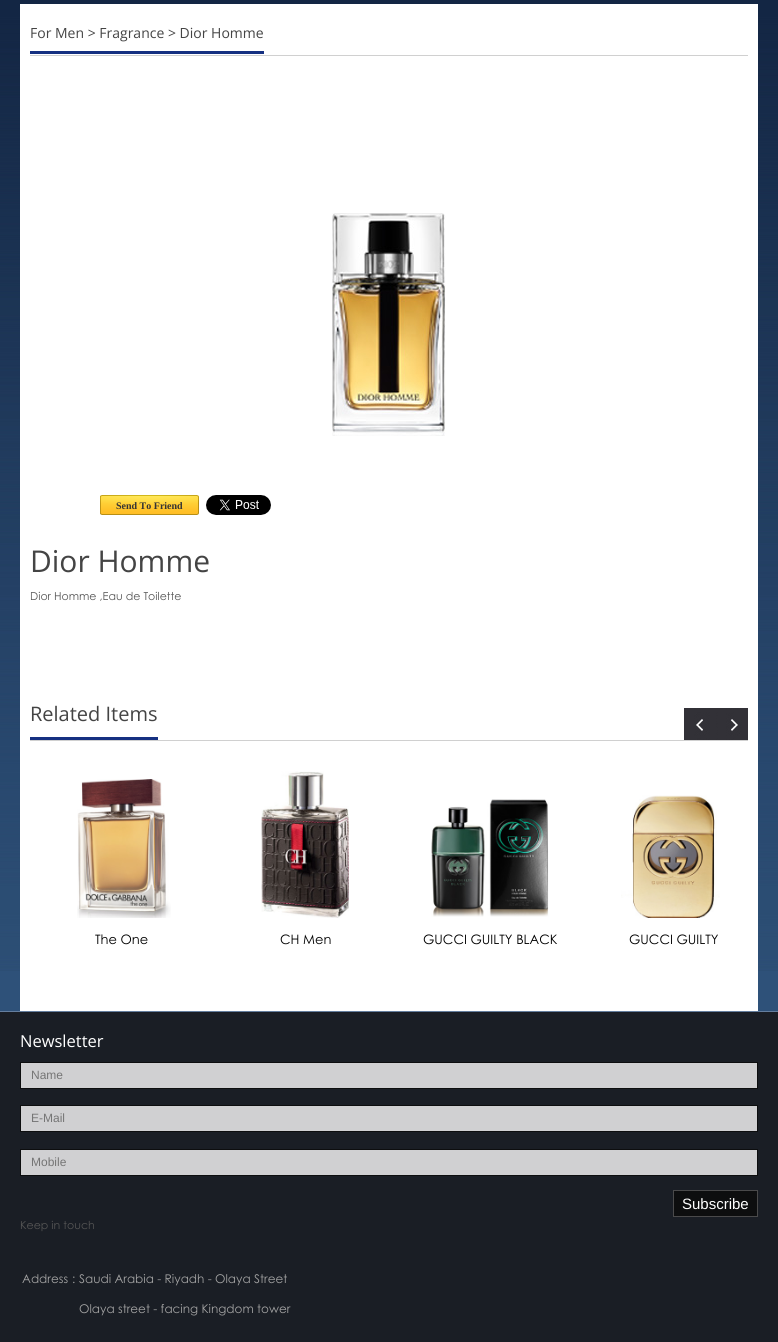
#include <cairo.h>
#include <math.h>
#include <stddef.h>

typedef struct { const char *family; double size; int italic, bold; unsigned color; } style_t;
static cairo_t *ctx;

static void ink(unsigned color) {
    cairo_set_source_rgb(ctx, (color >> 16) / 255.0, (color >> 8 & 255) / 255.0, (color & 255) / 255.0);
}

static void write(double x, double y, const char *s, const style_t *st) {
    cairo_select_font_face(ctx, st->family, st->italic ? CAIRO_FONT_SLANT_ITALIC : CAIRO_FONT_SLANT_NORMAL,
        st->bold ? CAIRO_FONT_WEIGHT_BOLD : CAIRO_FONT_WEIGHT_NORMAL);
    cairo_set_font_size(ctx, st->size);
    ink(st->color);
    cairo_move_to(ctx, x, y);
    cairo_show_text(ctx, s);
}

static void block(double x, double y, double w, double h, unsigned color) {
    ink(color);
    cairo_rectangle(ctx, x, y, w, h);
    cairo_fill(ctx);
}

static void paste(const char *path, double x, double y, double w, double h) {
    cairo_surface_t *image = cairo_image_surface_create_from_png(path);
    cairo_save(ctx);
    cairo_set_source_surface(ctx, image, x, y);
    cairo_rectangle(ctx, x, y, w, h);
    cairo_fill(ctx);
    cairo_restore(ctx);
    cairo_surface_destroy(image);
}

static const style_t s1 = {"Open Sans", 14, 0, 0, 0x444444};
static const style_t s2 = {"Liberation Serif", 10, 0, 1, 0x333333};
static const style_t s3 = {"Open Sans", 30, 0, 0, 0x444444};
static const style_t s4 = {"Century Gothic", 11, 0, 0, 0x555555};
static const style_t s5 = {"Open Sans", 20, 0, 0, 0x444444};
static const style_t s6 = {"Century Gothic", 13, 0, 0, 0x000000};
static const style_t s7 = {"Open Sans", 16.5, 0, 0, 0xffffff};
static const style_t s8 = {"Liberation Sans", 12, 0, 0, 0x757575};
static const style_t s9 = {"Liberation Sans", 15, 0, 0, 0xffffff};
static const style_t s10 = {"Century Gothic", 12, 0, 0, 0xa3a3a3};

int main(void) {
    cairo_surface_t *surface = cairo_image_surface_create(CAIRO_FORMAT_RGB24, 778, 1342);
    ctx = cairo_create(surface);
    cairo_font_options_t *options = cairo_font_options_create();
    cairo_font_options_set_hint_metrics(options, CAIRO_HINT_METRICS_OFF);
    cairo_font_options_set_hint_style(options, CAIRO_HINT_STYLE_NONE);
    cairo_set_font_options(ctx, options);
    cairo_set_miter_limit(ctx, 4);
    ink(0x2e5179);
    cairo_paint(ctx);
    paste("pic1.png", 0, 0, 778, 971);
    block(20, 4, 738, 1007, 0xffffff);
    block(30, 55, 718, 1, 0xd0d0d0);
    write(30, 38, "For Men > Fragrance > Dior Homme", &s1);
    block(30, 51, 234, 3, 0x153081);
    paste("pic2.png", 332, 213, 114, 223);
    paste("pic3.png", 100, 495, 99, 20);
    write(116, 509, "Send To Friend", &s2);
    paste("pic4.png", 206, 495, 65, 20);
    write(30, 572, "Dior Homme", &s3);
    write(30, 600, "Dior Homme ,Eau de Toilette", &s4);
    block(30, 740, 718, 1, 0xd0d0d0);
    write(30, 721, "Related Items", &s5);
    block(30, 737, 128, 3, 0x153081);
    paste("pic5.png", 684, 708, 32, 32);
    paste("pic6.png", 716, 708, 32, 32);
    paste("pic7.png", 77, 779, 94, 139);
    write(95, 944, "The One", &s6);
    paste("pic8.png", 261, 771, 88, 147);
    write(280, 944, "CH Men", &s6);
    paste("pic9.png", 431, 799, 118, 118);
    write(423, 944, "GUCCI GUILTY BLACK", &s6);
    paste("pic10.png", 621, 795, 99, 123);
    write(629, 944, "GUCCI GUILTY", &s6);
    block(0, 1012, 778, 330, 0x1a1e25);
    block(0, 1011, 778, 1, 0x647e9e);
    write(20, 1047, "Newsletter", &s7);
    ink(0xd0d0d2);
    cairo_rectangle(ctx, 20.5, 1062.5, 737, 26);
    cairo_fill_preserve(ctx);
    ink(0x0d0e0f);
    cairo_set_line_width(ctx, 1);
    cairo_stroke(ctx);
    write(31, 1079, "Name", &s8);
    ink(0xd0d0d2);
    cairo_rectangle(ctx, 20.5, 1105.5, 737, 26);
    cairo_fill_preserve(ctx);
    ink(0x0d0e0f);
    cairo_stroke(ctx);
    write(31, 1122, "E-Mail", &s8);
    ink(0xd0d0d2);
    cairo_rectangle(ctx, 20.5, 1149.5, 737, 26);
    cairo_fill_preserve(ctx);
    ink(0x0d0e0f);
    cairo_stroke(ctx);
    write(31, 1166, "Mobile", &s8);
    ink(0x0d0e0f);
    cairo_rectangle(ctx, 673.5, 1190.5, 84, 26);
    cairo_fill_preserve(ctx);
    ink(0x4a4a4b);
    cairo_stroke(ctx);
    write(682, 1209, "Subscribe", &s9);
    write(20, 1229, "Keep in touch", &s4);
    write(22, 1283, "Address", &s10);
    write(72, 1283, ":", &s10);
    write(79, 1283, "Saudi Arabia - Riyadh - Olaya Street", &s10);
    write(79, 1313, "Olaya street - facing Kingdom tower", &s10);
    cairo_surface_write_to_png(surface, "screenshot.png");
    cairo_font_options_destroy(options);
    cairo_destroy(ctx);
    cairo_surface_destroy(surface);
    return 0;
}
